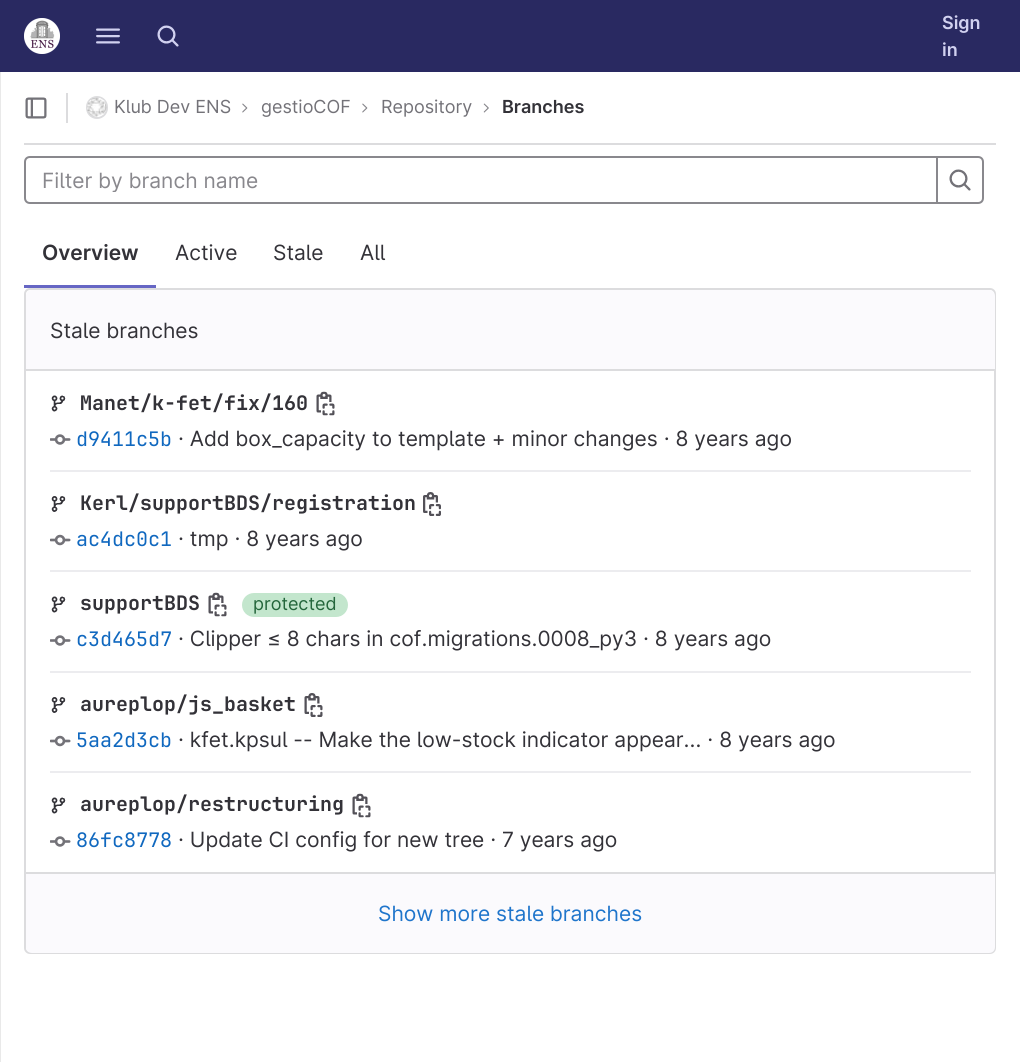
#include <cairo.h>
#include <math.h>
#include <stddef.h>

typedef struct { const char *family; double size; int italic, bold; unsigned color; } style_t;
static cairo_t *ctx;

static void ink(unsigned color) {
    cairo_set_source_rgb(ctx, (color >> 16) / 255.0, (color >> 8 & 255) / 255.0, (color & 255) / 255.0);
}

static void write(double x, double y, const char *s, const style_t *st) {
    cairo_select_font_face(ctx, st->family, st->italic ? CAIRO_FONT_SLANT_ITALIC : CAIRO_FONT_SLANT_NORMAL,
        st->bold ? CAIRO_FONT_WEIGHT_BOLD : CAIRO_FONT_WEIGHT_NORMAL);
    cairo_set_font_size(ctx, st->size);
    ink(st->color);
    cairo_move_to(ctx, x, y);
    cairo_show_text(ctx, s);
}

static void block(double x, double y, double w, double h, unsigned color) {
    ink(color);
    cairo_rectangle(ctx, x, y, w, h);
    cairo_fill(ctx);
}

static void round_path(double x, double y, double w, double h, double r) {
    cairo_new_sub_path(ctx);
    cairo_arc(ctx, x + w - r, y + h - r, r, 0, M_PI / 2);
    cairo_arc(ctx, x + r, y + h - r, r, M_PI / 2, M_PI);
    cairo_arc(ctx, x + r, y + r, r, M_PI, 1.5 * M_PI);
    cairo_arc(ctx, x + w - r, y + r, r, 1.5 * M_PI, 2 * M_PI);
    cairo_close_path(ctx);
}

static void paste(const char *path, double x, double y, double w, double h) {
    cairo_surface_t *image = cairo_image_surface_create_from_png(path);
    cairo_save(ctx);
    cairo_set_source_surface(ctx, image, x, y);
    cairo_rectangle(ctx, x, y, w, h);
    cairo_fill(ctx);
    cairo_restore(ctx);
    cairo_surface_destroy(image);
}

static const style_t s1 = {"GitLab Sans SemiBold", 18, 0, 0, 0xd1d1f0};
static const style_t s2 = {"GitLab Sans", 18, 0, 0, 0x737278};
static const style_t s3 = {"GitLab Sans SemiBold", 18, 0, 0, 0x333238};
static const style_t s4 = {"GitLab Sans", 21, 0, 0, 0x89888d};
static const style_t s5 = {"GitLab Sans SemiBold", 21, 0, 0, 0x333238};
static const style_t s6 = {"GitLab Sans", 21, 0, 0, 0x333238};
static const style_t s7 = {"JetBrains Mono", 20, 0, 1, 0x333238};
static const style_t s8 = {"JetBrains Mono", 20, 0, 0, 0x1068bf};
static const style_t s9 = {"GitLab Sans", 18, 0, 0, 0x24663b};
static const style_t s10 = {"GitLab Sans", 21, 0, 0, 0x1f75cb};

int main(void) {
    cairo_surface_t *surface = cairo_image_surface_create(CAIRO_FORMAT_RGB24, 1020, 1062);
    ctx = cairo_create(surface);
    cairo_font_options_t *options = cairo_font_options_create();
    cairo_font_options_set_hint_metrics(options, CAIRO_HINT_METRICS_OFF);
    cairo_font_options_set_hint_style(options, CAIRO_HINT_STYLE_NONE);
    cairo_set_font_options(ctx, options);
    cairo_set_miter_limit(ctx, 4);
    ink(0xffffff);
    cairo_paint(ctx);
    block(0, 0, 1020, 72, 0x292961);
    paste("pic1.png", 24, 18, 36, 36);
    paste("pic2.png", 96, 28, 24, 16);
    paste("pic3.png", 157, 25, 22, 22);
    write(942, 29, "Sign", &s1);
    write(942, 56, "in", &s1);
    block(0, 72, 1, 990, 0xe9e9e9);
    block(24, 143, 972, 2, 0xdcdcde);
    paste("pic4.png", 25, 97, 22, 22);
    block(66, 93, 2, 30, 0xdcdcde);
    round_path(87, 97, 20, 21, 10);
    cairo_stroke(ctx);
    paste("pic5.png", 87, 97, 20, 20);
    write(114, 113, "Klub Dev ENS", &s2);
    paste("pic6.png", 242, 103, 6, 10);
    write(261, 113, "gestioCOF", &s2);
    paste("pic6.png", 362, 103, 6, 10);
    write(381, 113, "Repository", &s2);
    paste("pic7.png", 483, 103, 6, 10);
    write(502, 113, "Branches", &s3);
    cairo_new_path(ctx);
    cairo_move_to(ctx, 30, 157);
    cairo_line_to(ctx, 937, 157);
    cairo_line_to(ctx, 937, 203);
    cairo_line_to(ctx, 30, 203);
    cairo_curve_to(ctx, 27, 203, 25, 201, 25, 198);
    cairo_line_to(ctx, 25, 162);
    cairo_curve_to(ctx, 25, 159, 27, 157, 30, 157);
    cairo_close_path(ctx);
    ink(0x89888d);
    cairo_stroke(ctx);
    cairo_save(ctx);
    cairo_rectangle(ctx, 42, 167, 848, 25);
    cairo_clip(ctx);
    write(42, 188, "Filter by branch name", &s4);
    cairo_restore(ctx);
    ink(0xffffff);
    cairo_new_path(ctx);
    cairo_move_to(ctx, 937, 157);
    cairo_line_to(ctx, 978, 157);
    cairo_curve_to(ctx, 981, 157, 983, 159, 983, 162);
    cairo_line_to(ctx, 983, 198);
    cairo_curve_to(ctx, 983, 201, 981, 203, 978, 203);
    cairo_line_to(ctx, 937, 203);
    cairo_close_path(ctx);
    cairo_fill_preserve(ctx);
    ink(0x89888d);
    cairo_stroke(ctx);
    paste("pic8.png", 949, 169, 22, 22);
    block(24, 285, 132, 3, 0x6666c4);
    write(42, 260, "Overview", &s5);
    write(175, 260, "Active", &s6);
    write(273, 260, "Stale", &s6);
    write(360, 260, "All", &s6);
    round_path(25, 289, 970, 664, 5);
    ink(0xdcdcde);
    cairo_stroke(ctx);
    ink(0xfbfafd);
    cairo_new_path(ctx);
    cairo_move_to(ctx, 32, 290);
    cairo_line_to(ctx, 989, 290);
    cairo_curve_to(ctx, 992.5, 290, 995, 292.5, 995, 296);
    cairo_line_to(ctx, 995, 371);
    cairo_line_to(ctx, 26, 371);
    cairo_line_to(ctx, 26, 296);
    cairo_curve_to(ctx, 26, 292.5, 28.5, 290, 32, 290);
    cairo_close_path(ctx);
    cairo_fill(ctx);
    block(26, 369, 969, 2, 0xdcdcde);
    write(50, 338, "Stale branches", &s6);
    block(50, 470, 921, 2, 0xececef);
    paste("pic9.png", 51, 395, 15, 17);
    write(80, 410, "Manet/k-fet/fix/160", &s7);
    paste("pic10.png", 316, 391, 19, 25);
    paste("pic11.png", 50, 434, 21, 11);
    write(76, 446, "d9411c5b", &s8);
    write(178, 446, "· Add box_capacity to template + minor changes · 8 years ago", &s6);
    block(50, 570, 921, 2, 0xececef);
    paste("pic12.png", 51, 496, 15, 16);
    write(80, 510, "Kerl/supportBDS/registration", &s7);
    paste("pic13.png", 423, 492, 18, 24);
    paste("pic14.png", 50, 534, 21, 12);
    write(76, 546, "ac4dc0c1", &s8);
    write(178, 546, "· tmp · 8 years ago", &s6);
    block(50, 671, 921, 2, 0xececef);
    paste("pic9.png", 51, 596, 15, 17);
    write(80, 610, "supportBDS", &s7);
    paste("pic10.png", 208, 592, 19, 25);
    ink(0xc3e6cd);
    round_path(242, 593, 106, 24, 12);
    cairo_fill(ctx);
    write(253, 610, "protected", &s9);
    paste("pic11.png", 50, 635, 21, 11);
    write(76, 646, "c3d465d7", &s8);
    write(178, 646, "· Clipper ≤ 8 chars in cof.migrations.0008_py3 · 8 years ago", &s6);
    block(50, 771, 921, 2, 0xececef);
    paste("pic12.png", 51, 697, 15, 16);
    write(80, 711, "aureplop/js_basket", &s7);
    paste("pic15.png", 304, 693, 19, 24);
    paste("pic14.png", 50, 735, 21, 12);
    write(76, 747, "5aa2d3cb", &s8);
    write(178, 747, "· kfet.kpsul -- Make the low-stock indicator appear… · 8 years ago", &s6);
    paste("pic9.png", 51, 797, 15, 17);
    write(80, 811, "aureplop/restructuring", &s7);
    paste("pic10.png", 352, 793, 19, 25);
    paste("pic11.png", 50, 836, 21, 11);
    write(76, 847, "86fc8778", &s8);
    write(178, 847, "· Update CI config for new tree · 7 years ago", &s6);
    ink(0xfbfafd);
    cairo_new_path(ctx);
    cairo_move_to(ctx, 26, 872);
    cairo_line_to(ctx, 995, 872);
    cairo_line_to(ctx, 995, 947);
    cairo_curve_to(ctx, 995, 950.5, 992.5, 953, 989, 953);
    cairo_line_to(ctx, 32, 953);
    cairo_curve_to(ctx, 28.5, 953, 26, 950.5, 26, 947);
    cairo_close_path(ctx);
    cairo_fill(ctx);
    block(26, 872, 969, 2, 0xdcdcde);
    write(378, 921, "Show more stale branches", &s10);
    cairo_surface_write_to_png(surface, "screenshot.png");
    cairo_font_options_destroy(options);
    cairo_destroy(ctx);
    cairo_surface_destroy(surface);
    return 0;
}
